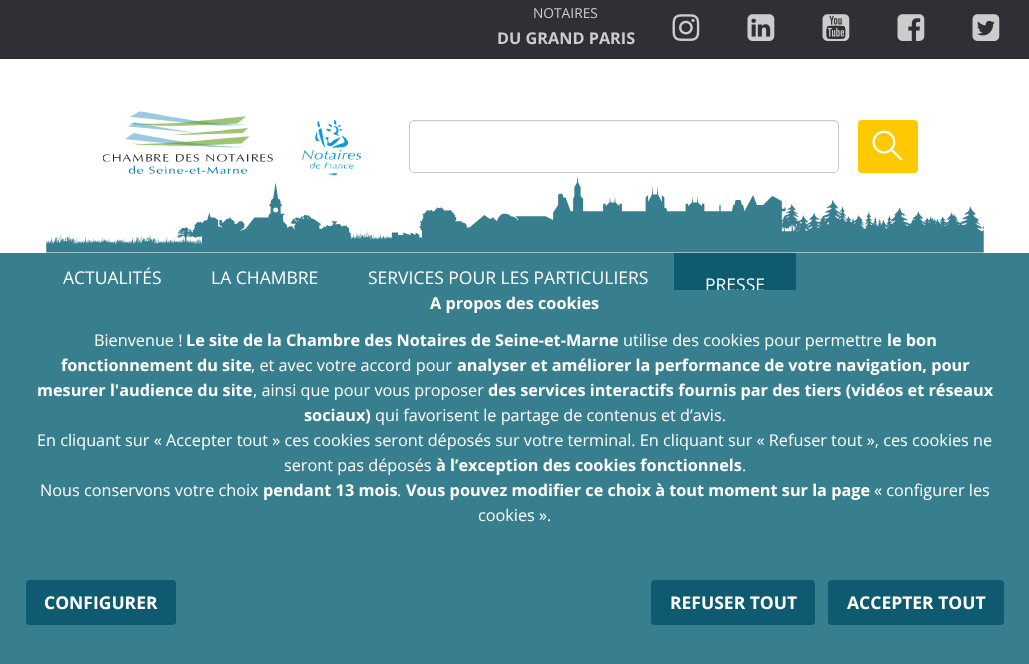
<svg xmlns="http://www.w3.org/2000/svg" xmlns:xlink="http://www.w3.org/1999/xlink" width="1029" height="664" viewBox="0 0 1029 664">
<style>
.cls-1{font:13.75px Open Sans;fill:#cccccc}
.cls-2{font:bold 16.25px Open Sans;fill:#cccccc}
.cls-3{font:17.5px Open Sans;fill:#ffffff}
.cls-4{font:bold 16.25px Open Sans;fill:#ffffff}
.cls-5{font:16.25px Open Sans;fill:#ffffff}
.cls-6{font:bold 17.5px Open Sans;fill:#ffffff}
</style>
<rect width="100%" height="100%" fill="#ffffff"/>
<rect fill="#2f3035" x="0" y="0" width="1029" height="58"/>
<rect fill="#2a2b30" x="0" y="58" width="1029" height="1"/>
<image xlink:href="image0.png" x="672" y="14" width="28" height="27"/>
<image xlink:href="image1.png" x="747" y="14" width="28" height="27"/>
<image xlink:href="image2.png" x="822" y="14" width="28" height="27"/>
<image xlink:href="image3.png" x="897" y="14" width="28" height="27"/>
<image xlink:href="image4.png" x="972" y="14" width="28" height="27"/>
<image xlink:href="image5.png" x="103" y="111" width="258" height="64"/>
<path fill="#ececec" d="M414 122H834C836 122 838 124 838 126C838 123 837 121 834 121H414C413 121 411 122 411 123L410 126C410 124 412 122 414 122Z"/>
<rect fill="none" stroke="#cccccc" x="409.5" y="120.5" width="429" height="52" rx="4.5"/>
<rect fill="#ffc901" x="858" y="120" width="60" height="53" rx="4"/>
<image xlink:href="image6.png" x="872" y="130" width="31" height="31"/>
<image xlink:href="image7.png" x="46" y="175" width="938" height="78"/>
<rect fill="#377e8f" x="0" y="253" width="1029" height="37"/>
<rect fill="#0e5a70" x="674" y="253" width="122" height="37"/>
<text class="cls-1" x="533" y="18">NOTAIRES</text>
<text class="cls-2" x="497" y="44">DU GRAND PARIS</text>
<text class="cls-3" x="63" y="284">ACTUALITÉS</text>
<text class="cls-3" x="211" y="284">LA CHAMBRE</text>
<text class="cls-3" x="368" y="284">SERVICES POUR LES PARTICULIERS</text>
<text class="cls-3" x="705" y="291">PRESSE</text>
<rect fill="#377e8f" x="0" y="290" width="1029" height="374"/>
<text class="cls-4" x="430" y="309">A propos des cookies</text>
<text class="cls-5" x="94" y="346">Bienvenue !</text>
<text class="cls-4" x="186" y="346">Le site de la Chambre des Notaires de Seine-et-Marne</text>
<text class="cls-5" x="623" y="346">utilise des cookies pour permettre</text>
<text class="cls-4" x="887" y="346">le bon</text>
<text class="cls-4" x="61" y="371">fonctionnement du site</text>
<text class="cls-5" x="251" y="371">, et avec votre accord pour</text>
<text class="cls-4" x="457" y="371">analyser et améliorer la performance de votre navigation, pour</text>
<text class="cls-4" x="37" y="396">mesurer l'audience du site</text>
<text class="cls-5" x="253" y="396">, ainsi que pour vous proposer</text>
<text class="cls-4" x="488" y="396">des services interactifs fournis par des tiers (vidéos et réseaux</text>
<text class="cls-4" x="304" y="421">sociaux)</text>
<text class="cls-5" x="375" y="421">qui favorisent le partage de contenus et d’avis.</text>
<text class="cls-5" x="37" y="446">En cliquant sur « Accepter tout » ces cookies seront déposés sur votre terminal. En cliquant sur « Refuser tout », ces cookies ne</text>
<text class="cls-5" x="284" y="471">seront pas déposés</text>
<text class="cls-4" x="436" y="471">à l’exception des cookies fonctionnels</text>
<text class="cls-5" x="742" y="471">.</text>
<text class="cls-5" x="40" y="496">Nous conservons votre choix</text>
<text class="cls-4" x="263" y="496">pendant 13 mois</text>
<text class="cls-5" x="397" y="496">.</text>
<text class="cls-4" x="406" y="496">Vous pouvez modifier ce choix à tout moment sur la page</text>
<text class="cls-5" x="874" y="496">« configurer les</text>
<text class="cls-5" x="478" y="521">cookies ».</text>
<rect fill="#0e5a70" x="26" y="580" width="150" height="45" rx="4"/>
<text class="cls-6" x="44" y="609">CONFIGURER</text>
<rect fill="#0e5a70" x="651" y="580" width="164" height="45" rx="4"/>
<text class="cls-6" x="670" y="609">REFUSER TOUT</text>
<rect fill="#0e5a70" x="828" y="580" width="176" height="45" rx="4"/>
<text class="cls-6" x="847" y="609">ACCEPTER TOUT</text>
</svg>
